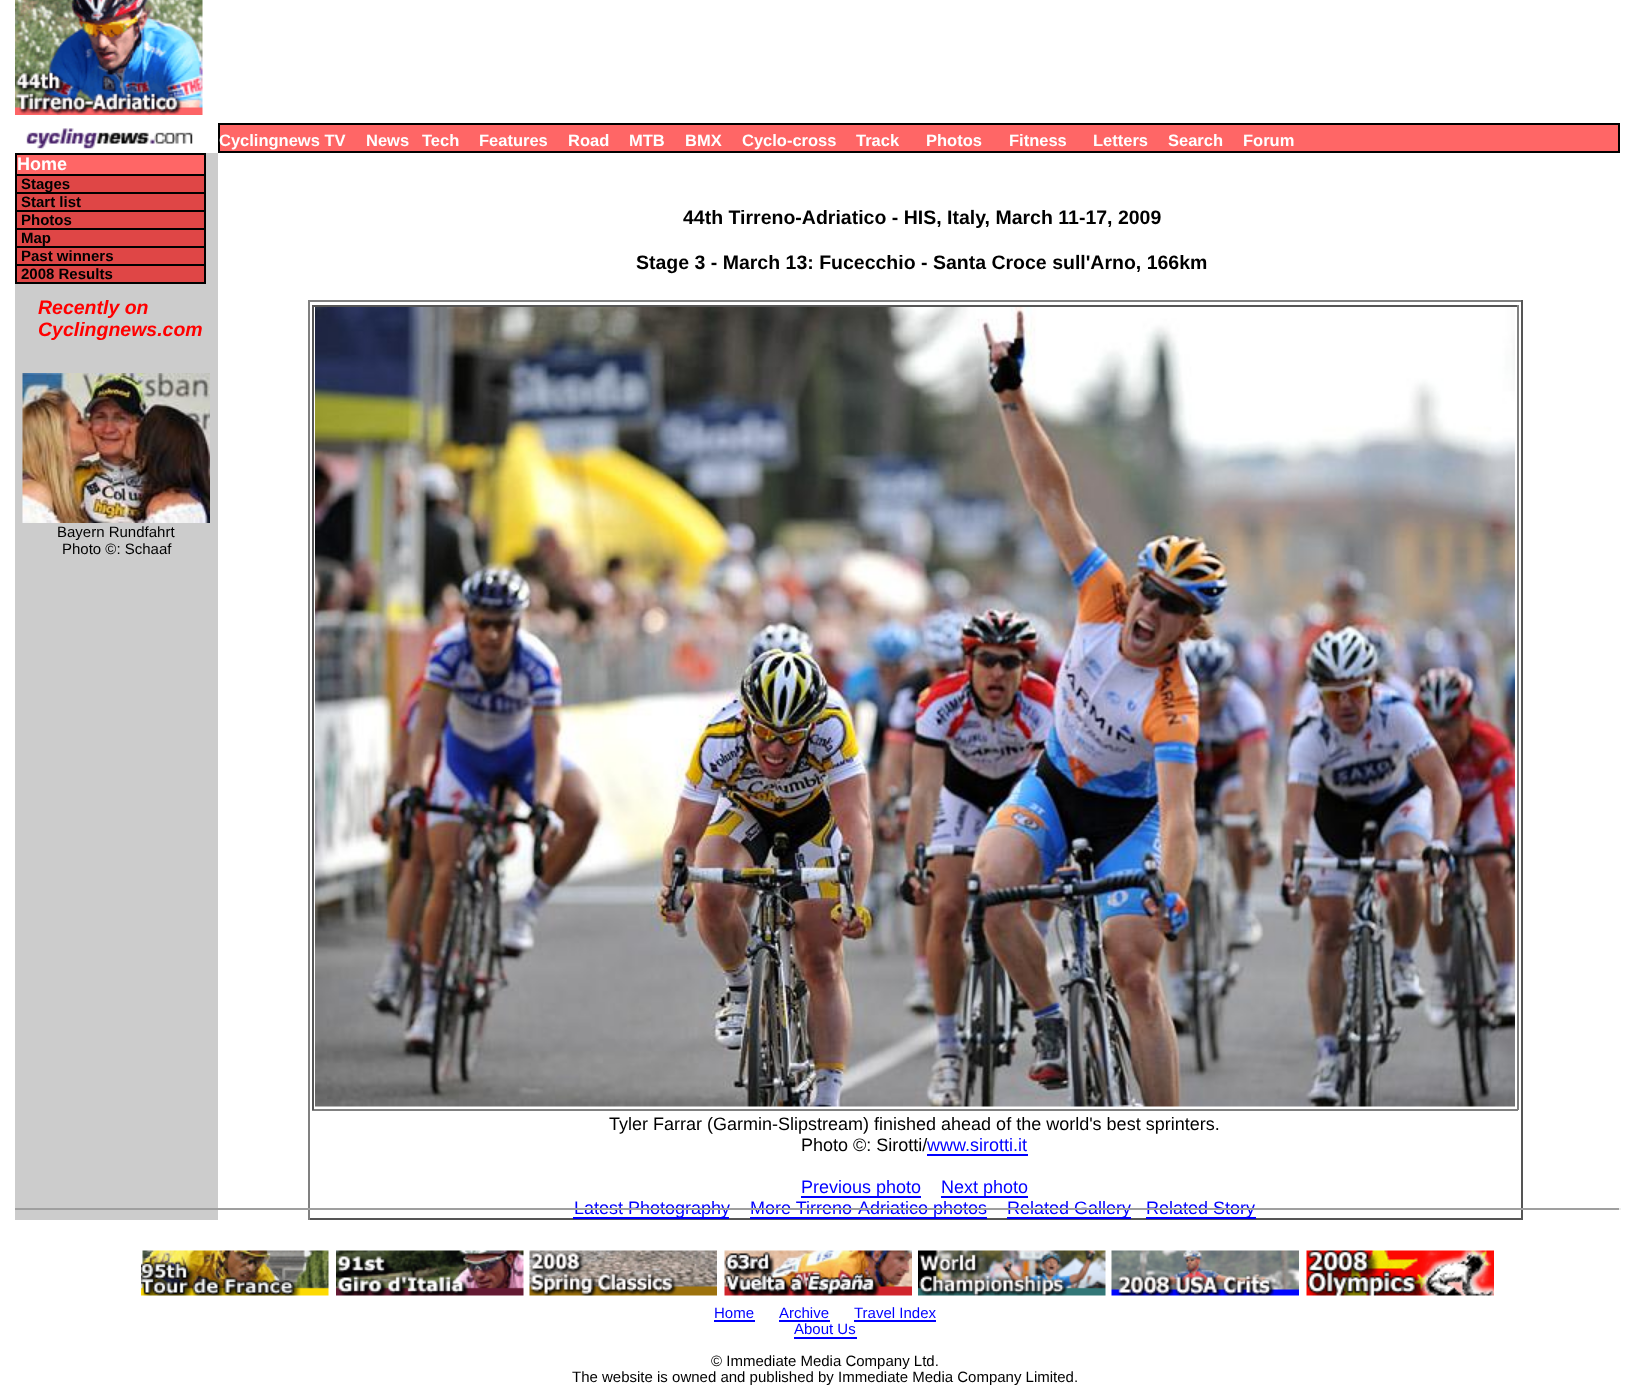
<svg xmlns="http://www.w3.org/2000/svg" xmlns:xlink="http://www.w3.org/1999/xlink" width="1627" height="1400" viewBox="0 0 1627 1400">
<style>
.cls-1{font:bold 16.5px Liberation Sans;fill:#ffffff}
.cls-2{font:bold 18px Liberation Sans;fill:#ffffff}
.cls-3{font:bold 15px Liberation Sans;fill:#000000}
.cls-4{font:italic bold 19.5px Liberation Sans;fill:#ff0000}
.cls-5{font:15px Liberation Sans;fill:#000000}
.cls-6{font:bold 19.5px Liberation Sans;fill:#000000}
.cls-7{font:18px Liberation Sans;fill:#000000}
.cls-8{font:18px Liberation Sans;fill:#0000ff}
.cls-9{font:15px Liberation Sans;fill:#0000ff}
</style>
<rect width="100%" height="100%" fill="#ffffff"/>
<image xlink:href="image0.png" x="15" y="0" width="188" height="115"/>
<image xlink:href="image1.png" x="26" y="128" width="167" height="21"/>
<rect fill="#ff6666" stroke="#000000" stroke-width="2" x="219" y="124" width="1400" height="28"/>
<rect fill="#cccccc" x="15" y="153" width="203" height="1067"/>
<rect fill="#000000" x="15" y="153" width="191" height="2"/>
<rect fill="#ff6666" x="17" y="155" width="187" height="19"/>
<rect fill="#000000" x="204" y="155" width="2" height="129"/>
<rect fill="#000000" x="15" y="174" width="191" height="2"/>
<rect fill="#000000" x="15" y="155" width="2" height="21"/>
<rect fill="#df4646" x="17" y="176" width="187" height="16"/>
<rect fill="#000000" x="15" y="192" width="191" height="2"/>
<rect fill="#000000" x="15" y="176" width="2" height="18"/>
<rect fill="#df4646" x="17" y="194" width="187" height="16"/>
<rect fill="#000000" x="15" y="210" width="191" height="2"/>
<rect fill="#000000" x="15" y="194" width="2" height="18"/>
<rect fill="#df4646" x="17" y="212" width="187" height="16"/>
<rect fill="#000000" x="15" y="228" width="191" height="2"/>
<rect fill="#000000" x="15" y="212" width="2" height="18"/>
<rect fill="#df4646" x="17" y="230" width="187" height="16"/>
<rect fill="#000000" x="15" y="246" width="191" height="2"/>
<rect fill="#000000" x="15" y="230" width="2" height="18"/>
<rect fill="#df4646" x="17" y="248" width="187" height="16"/>
<rect fill="#000000" x="15" y="264" width="191" height="2"/>
<rect fill="#000000" x="15" y="248" width="2" height="18"/>
<rect fill="#df4646" x="17" y="266" width="187" height="16"/>
<rect fill="#000000" x="15" y="282" width="191" height="2"/>
<rect fill="#000000" x="15" y="266" width="2" height="18"/>
<image xlink:href="image2.png" x="22" y="373" width="188" height="150"/>
<rect fill="#808080" x="308" y="300" width="1215" height="2"/>
<rect fill="#555555" x="1521" y="300" width="2" height="920"/>
<rect fill="#555555" x="308" y="1218" width="1215" height="2"/>
<rect fill="#808080" x="308" y="300" width="2" height="920"/>
<rect fill="#555555" x="312" y="305" width="1206" height="2"/>
<rect fill="#808080" x="1517" y="305" width="2" height="805"/>
<rect fill="#808080" x="312" y="1109" width="1206" height="2"/>
<rect fill="#555555" x="312" y="305" width="2" height="805"/>
<image xlink:href="image3.png" x="315" y="307" width="1200" height="800"/>
<rect fill="#0000ff" x="927" y="1154" width="101" height="2"/>
<rect fill="#0000ff" x="801" y="1196" width="120" height="2"/>
<rect fill="#0000ff" x="941" y="1196" width="87" height="2"/>
<rect fill="#0000ff" x="573" y="1217" width="156" height="2"/>
<rect fill="#0000ff" x="750" y="1217" width="237" height="2"/>
<rect fill="#0000ff" x="1007" y="1217" width="124" height="2"/>
<rect fill="#0000ff" x="1146" y="1217" width="110" height="2"/>
<image xlink:href="image4.png" x="141" y="1250" width="188" height="46"/>
<image xlink:href="image5.png" x="336" y="1250" width="188" height="46"/>
<image xlink:href="image6.png" x="529" y="1250" width="188" height="46"/>
<image xlink:href="image7.png" x="724" y="1250" width="188" height="46"/>
<image xlink:href="image8.png" x="918" y="1250" width="188" height="46"/>
<image xlink:href="image9.png" x="1111" y="1250" width="188" height="46"/>
<image xlink:href="image10.png" x="1306" y="1250" width="188" height="46"/>
<rect fill="#0000ff" x="714" y="1320" width="41" height="2"/>
<rect fill="#0000ff" x="779" y="1320" width="51" height="2"/>
<rect fill="#0000ff" x="854" y="1320" width="82" height="2"/>
<rect fill="#0000ff" x="794" y="1337" width="63" height="2"/>
<text class="cls-1" x="219" y="146">Cyclingnews TV</text>
<text class="cls-1" x="366" y="146">News</text>
<text class="cls-1" x="422" y="146">Tech</text>
<text class="cls-1" x="479" y="146">Features</text>
<text class="cls-1" x="568" y="146">Road</text>
<text class="cls-1" x="629" y="146">MTB</text>
<text class="cls-1" x="685" y="146">BMX</text>
<text class="cls-1" x="742" y="146">Cyclo-cross</text>
<text class="cls-1" x="856" y="146">Track</text>
<text class="cls-1" x="926" y="146">Photos</text>
<text class="cls-1" x="1009" y="146">Fitness</text>
<text class="cls-1" x="1093" y="146">Letters</text>
<text class="cls-1" x="1168" y="146">Search</text>
<text class="cls-1" x="1243" y="146">Forum</text>
<text class="cls-2" x="17" y="170">Home</text>
<text class="cls-3"><tspan x="21" y="189">Stages</tspan><tspan x="21" y="207">Start list</tspan><tspan x="21" y="225">Photos</tspan><tspan x="21" y="243">Map</tspan><tspan x="21" y="261">Past winners</tspan><tspan x="21" y="279">2008 Results</tspan></text>
<text class="cls-4"><tspan x="38" y="314">Recently on</tspan><tspan x="38" y="336">Cyclingnews.com</tspan></text>
<text class="cls-5" x="57" y="537">Bayern Rundfahrt</text>
<text class="cls-5" x="62" y="554">Photo ©: Schaaf</text>
<text class="cls-6" x="683" y="224">44th Tirreno-Adriatico - HIS, Italy, March 11-17, 2009</text>
<text class="cls-6" x="636" y="269">Stage 3 - March 13: Fucecchio - Santa Croce sull'Arno, 166km</text>
<text class="cls-7" x="609" y="1130">Tyler Farrar (Garmin-Slipstream) finished ahead of the world's best sprinters.</text>
<text class="cls-7" x="801" y="1151">Photo ©: Sirotti/</text>
<text class="cls-8" x="927" y="1151">www.sirotti.it</text>
<text class="cls-8" x="801" y="1193">Previous photo</text>
<text class="cls-8" x="941" y="1193">Next photo</text>
<text class="cls-8" x="574" y="1214">Latest Photography</text>
<text class="cls-8" x="750" y="1214">More Tirreno-Adriatico photos</text>
<text class="cls-8" x="1007" y="1214">Related Gallery</text>
<text class="cls-8" x="1146" y="1214">Related Story</text>
<rect fill="#9f9f9f" x="15" y="1208" width="1605" height="2"/>
<rect fill="#eeeeee" x="1619" y="1208" width="2" height="2"/>
<text class="cls-9" x="714" y="1318">Home</text>
<text class="cls-9" x="779" y="1318">Archive</text>
<text class="cls-9" x="854" y="1318">Travel Index</text>
<text class="cls-9" x="794" y="1334">About Us</text>
<text class="cls-5" x="711" y="1366">© Immediate Media Company Ltd.</text>
<text class="cls-5" x="572" y="1382">The website is owned and published by Immediate Media Company Limited.</text>
</svg>
